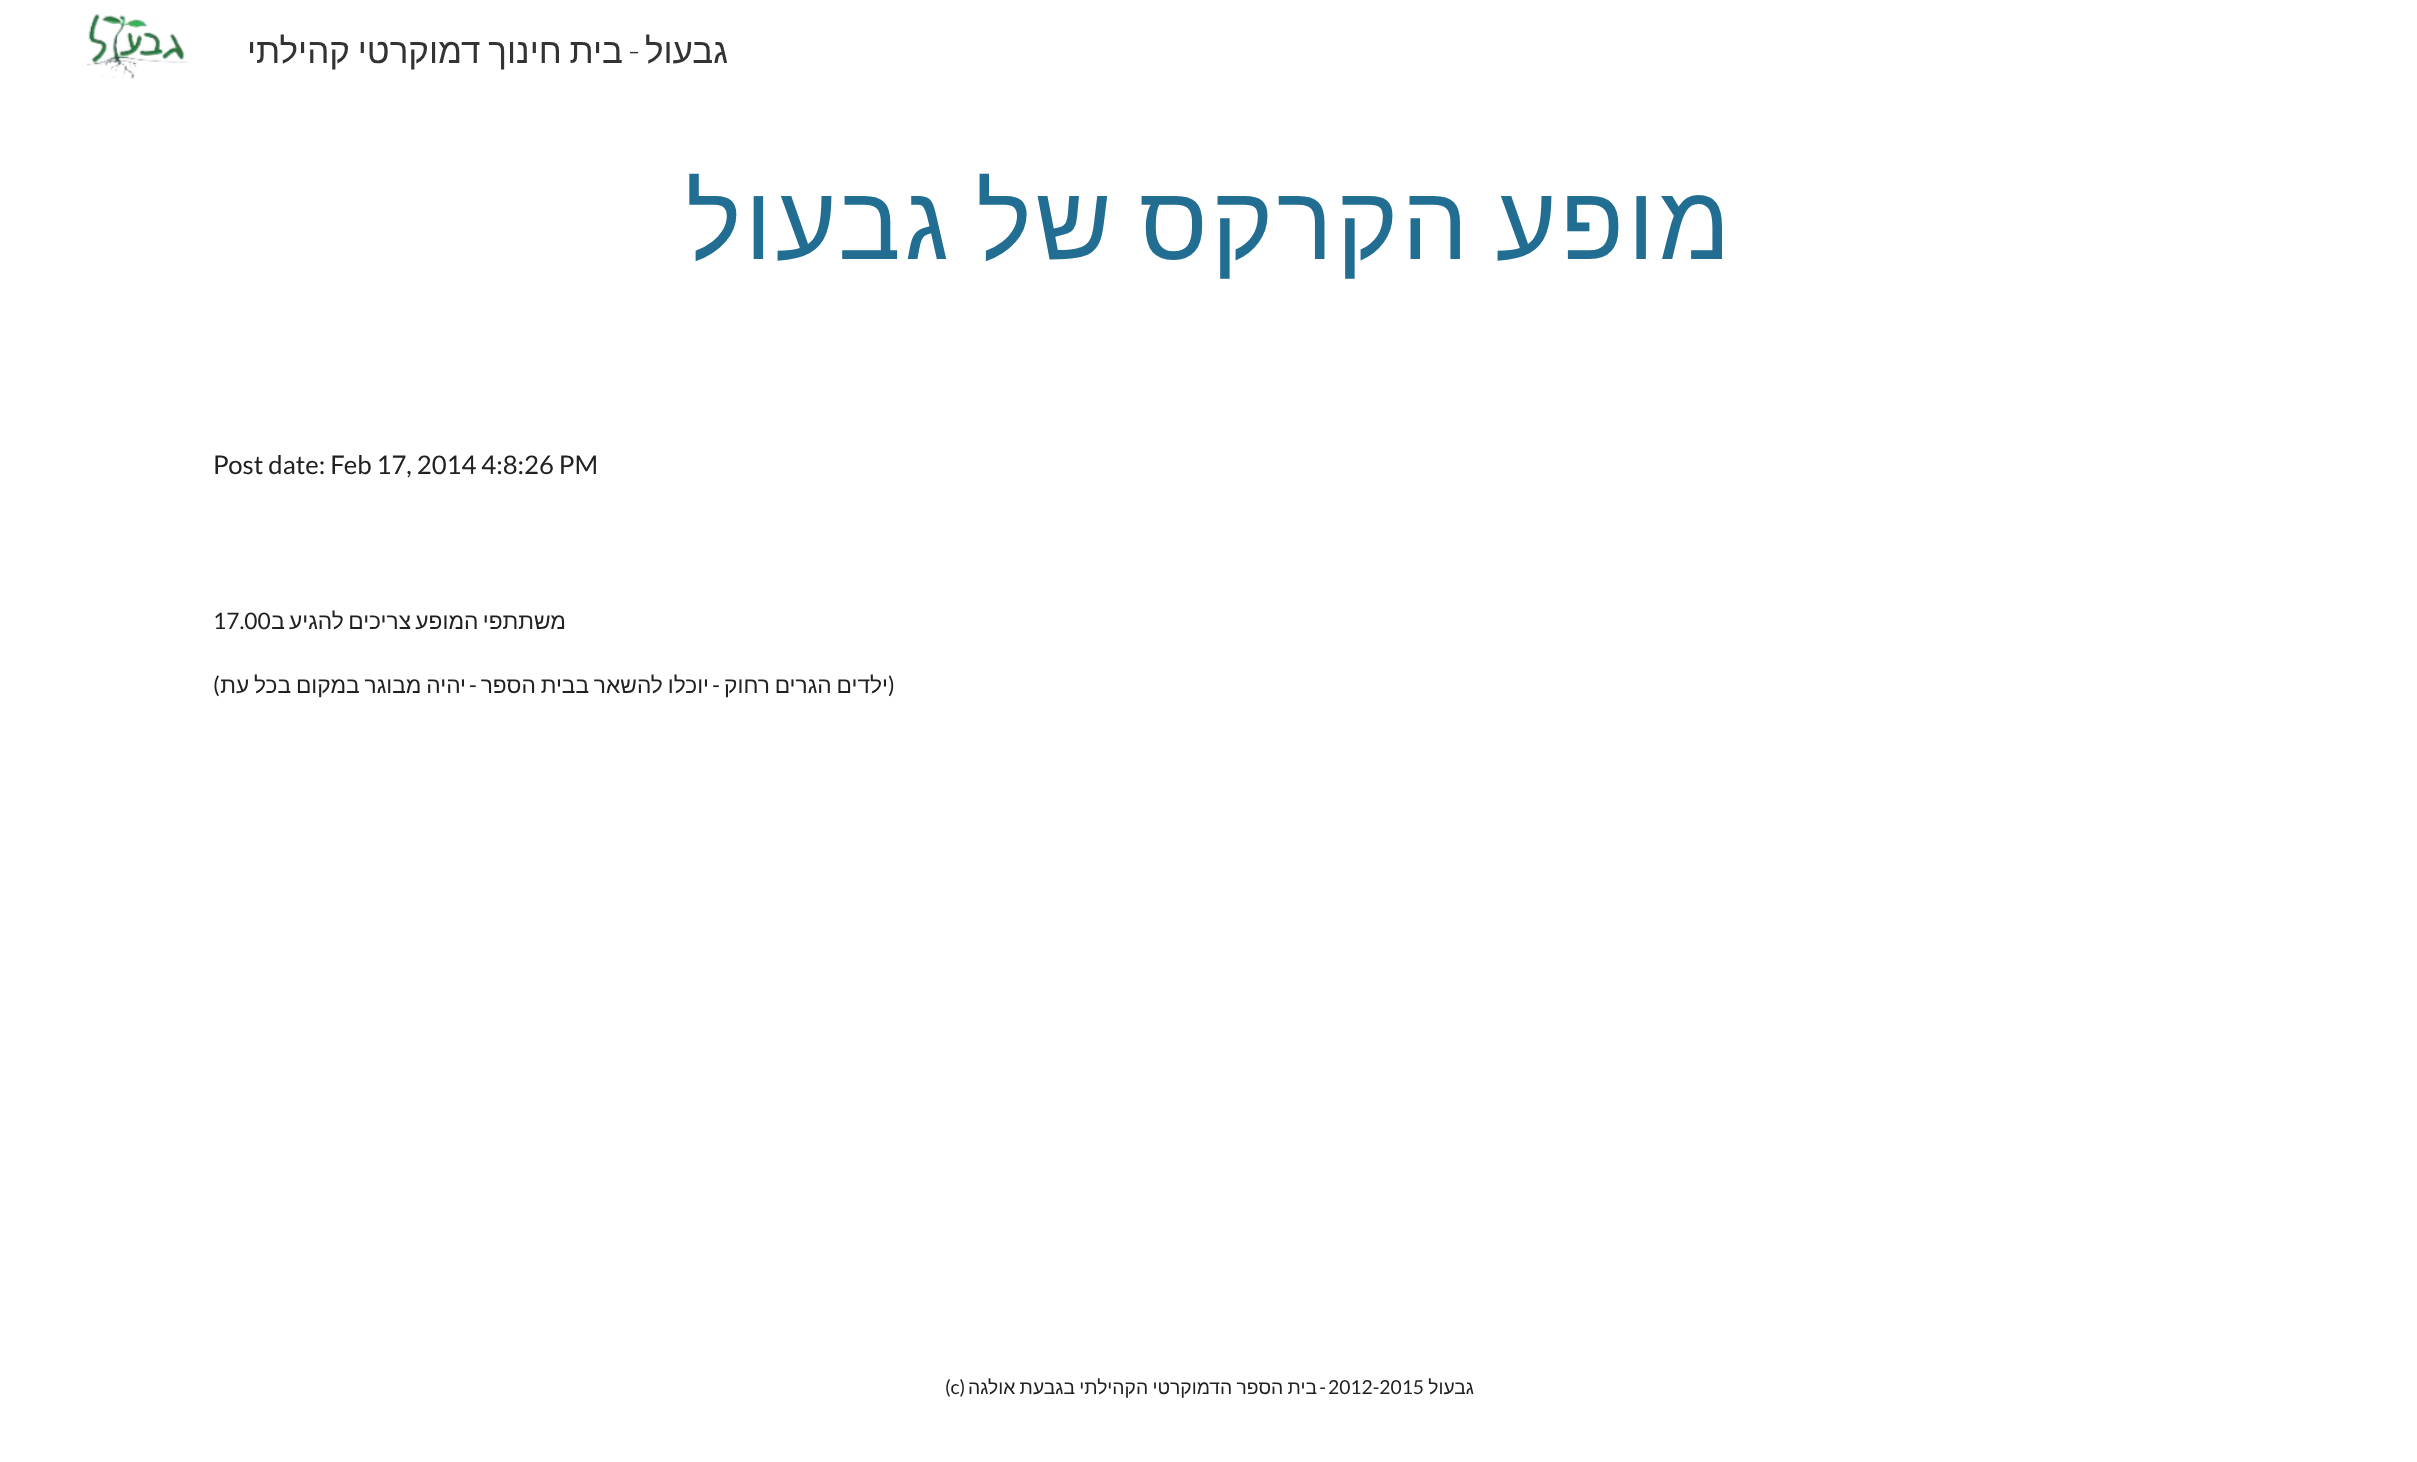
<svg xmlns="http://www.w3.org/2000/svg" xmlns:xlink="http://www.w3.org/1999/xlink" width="2417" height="1462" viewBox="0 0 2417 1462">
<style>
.cls-1{font:35px Liberation Sans;direction:rtl;fill:#333333}
.cls-2{font:300 35px Lato;direction:rtl;fill:#333333}
.cls-3{font:105px Liberation Sans;letter-spacing:3.5px;direction:rtl;fill:#226e93}
.cls-4{font:25.7px Lato;fill:#212121}
.cls-5{font:22.75px Liberation Sans;direction:rtl;fill:#212121}
.cls-6{font:22.75px Lato;fill:#212121}
.cls-7{font:22.75px Lato;direction:rtl;fill:#212121}
.cls-8{font:19.25px Liberation Sans;direction:rtl;fill:#212121}
.cls-9{font:19.25px Lato;fill:#212121}
.cls-10{font:19.25px Lato;direction:rtl;fill:#212121}
</style>
<rect width="100%" height="100%" fill="#ffffff"/>
<image xlink:href="image0.png" x="81" y="13" width="108" height="66"/>
<text class="cls-1" x="728" y="63">גבעול</text>
<text class="cls-2" x="640" y="63">-</text>
<text class="cls-1" x="623" y="63" word-spacing="-2">בית חינוך דמוקרטי קהילתי</text>
<text class="cls-3" x="1734" y="259" word-spacing="-9">מופע הקרקס של גבעול</text>
<text class="cls-4" x="213" y="474">Post date: Feb 17, 2014 4:8:26 PM</text>
<text class="cls-5" x="566" y="629" word-spacing="-2">משתתפי המופע צריכים להגיע ב</text>
<text class="cls-6" x="213" y="629">17.00</text>
<text class="cls-6" x="888" y="693">)</text>
<text class="cls-5" x="888" y="693" word-spacing="-1.5">ילדים הגרים רחוק</text>
<text class="cls-7" x="720" y="693">-</text>
<text class="cls-5" x="709" y="693" word-spacing="-1.5">יוכלו להשאר בבית הספר</text>
<text class="cls-7" x="477" y="693">-</text>
<text class="cls-5" x="466" y="693" word-spacing="-1.5">יהיה מבוגר במקום בכל עת</text>
<text class="cls-6" x="213" y="693">(</text>
<text class="cls-8" x="1474" y="1394">גבעול</text>
<text class="cls-9" x="1328" y="1394">2012-2015</text>
<text class="cls-10" x="1326" y="1394">-</text>
<text class="cls-8" x="1317" y="1394" word-spacing="-1">בית הספר הדמוקרטי הקהילתי בגבעת אולגה</text>
<text class="cls-9" x="945" y="1394">(c)</text>
</svg>
